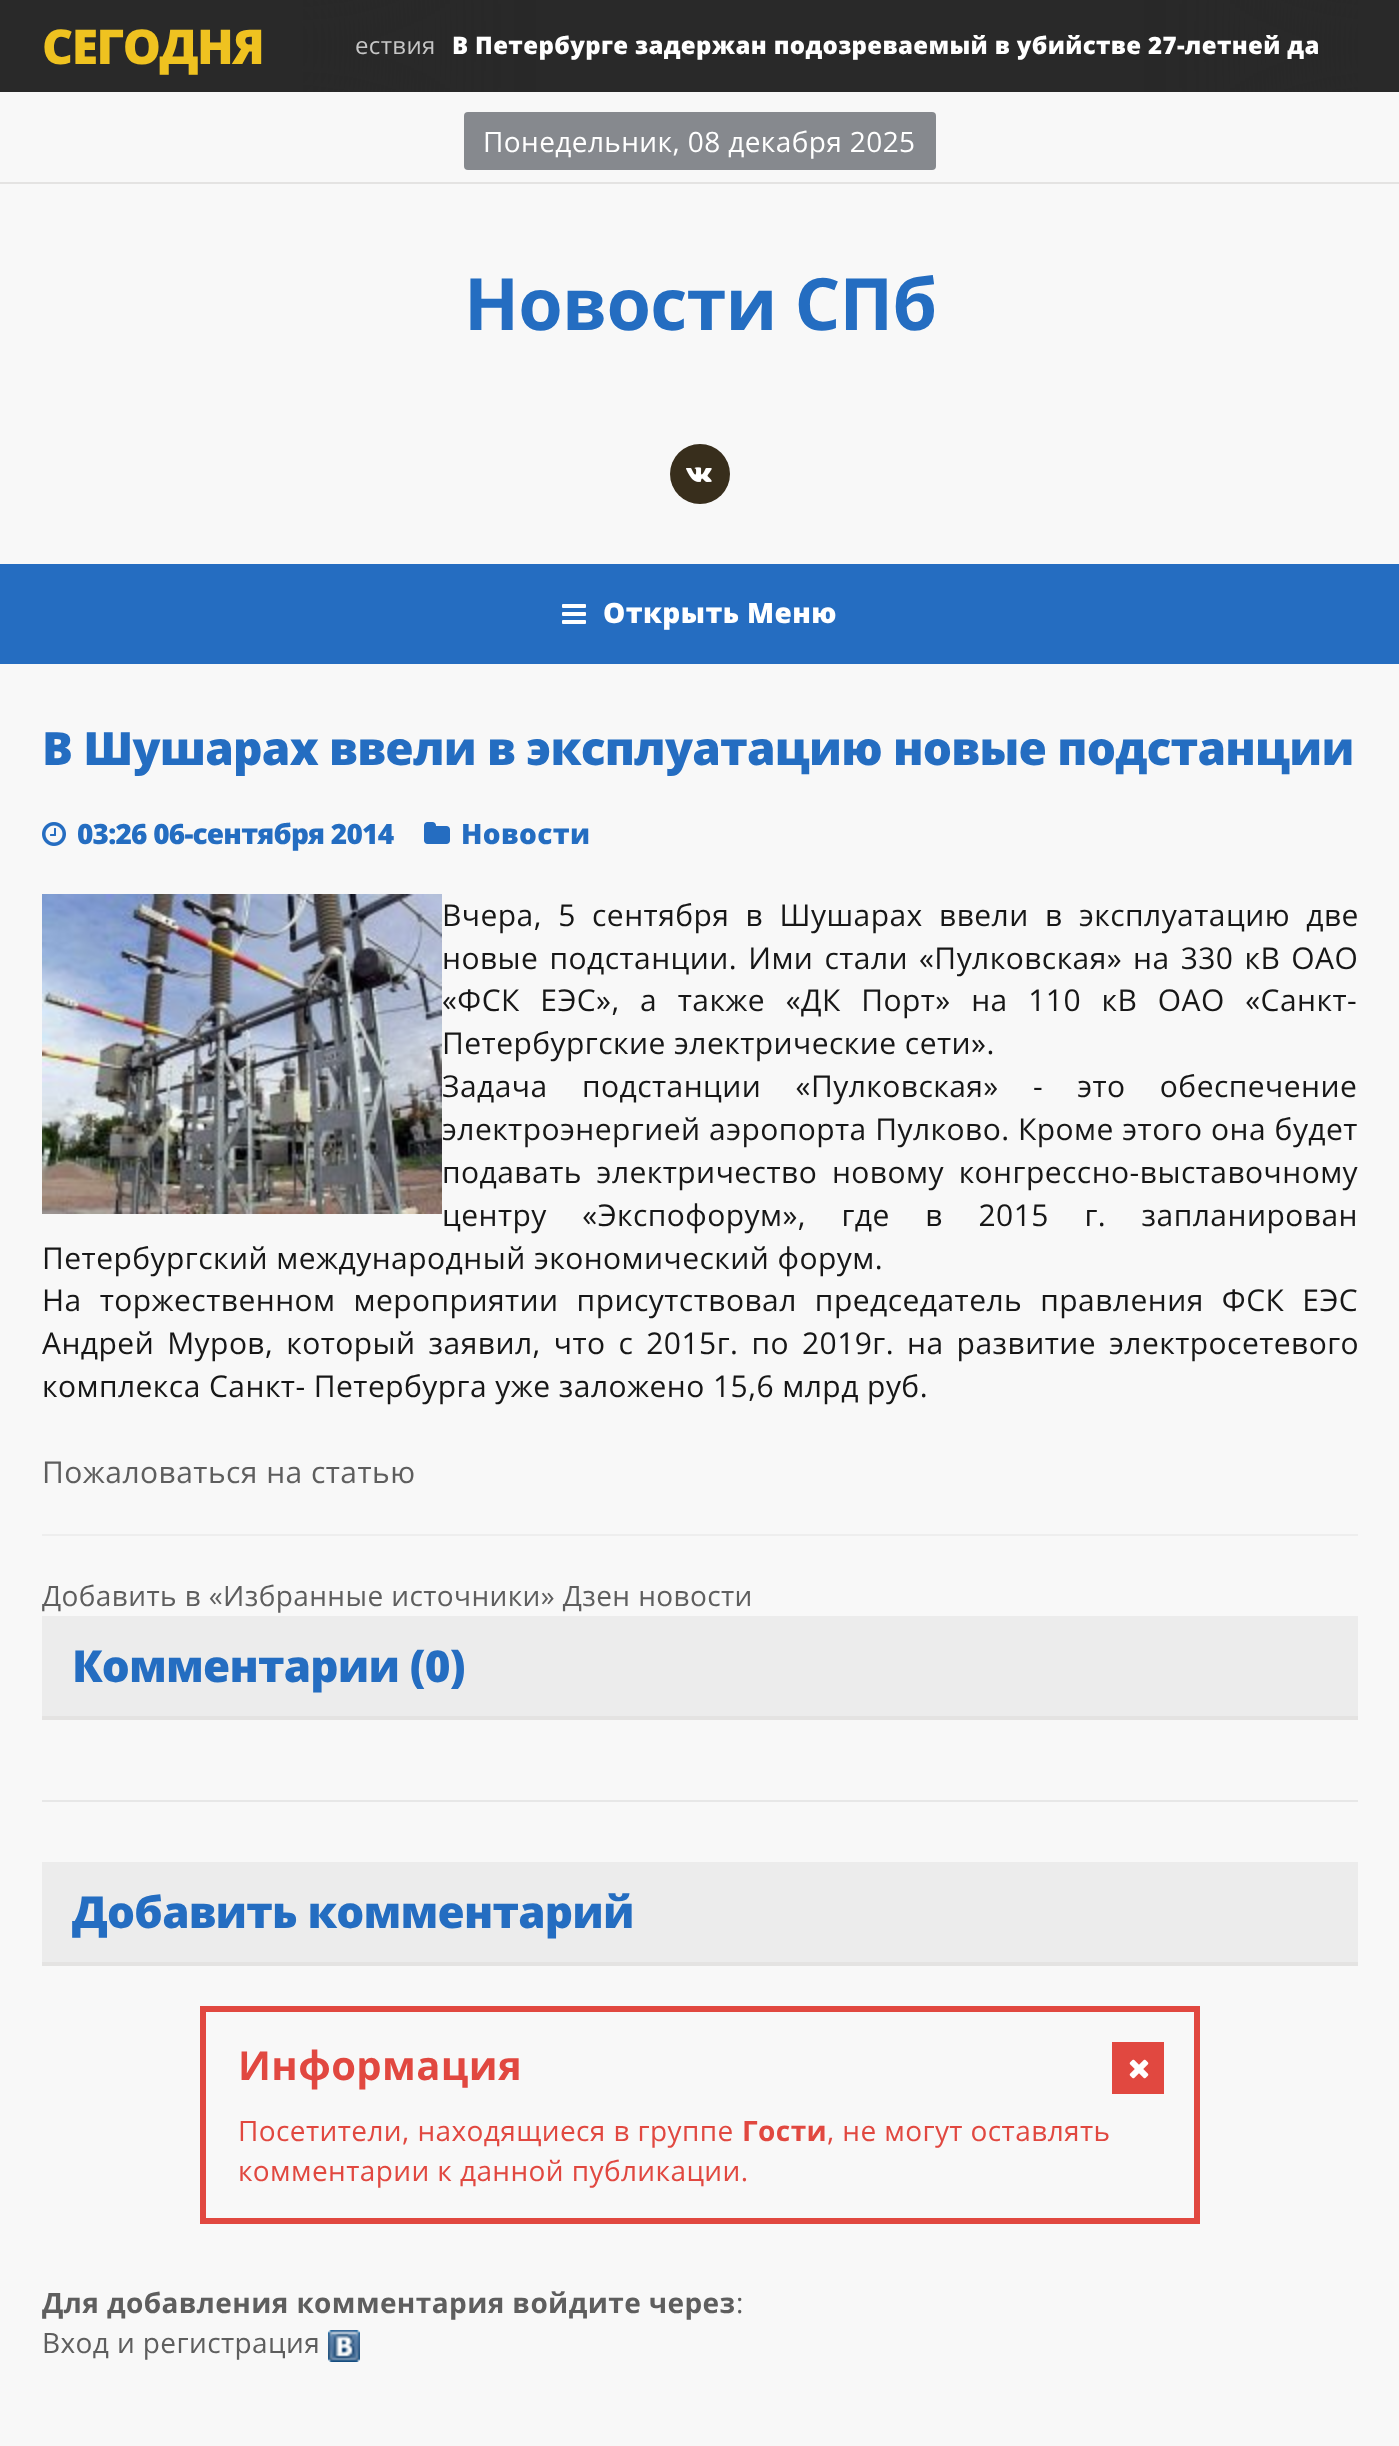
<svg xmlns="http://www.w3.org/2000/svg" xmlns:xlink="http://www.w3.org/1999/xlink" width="1399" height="2446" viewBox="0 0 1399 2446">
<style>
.cls-1{font:800 48px Open Sans;letter-spacing:-1.5px;fill:#efc220}
.cls-2{font:24px Open Sans;letter-spacing:0.35px;fill:#c6c6c6}
.cls-3{font:800 24px Open Sans;letter-spacing:0.35px;fill:#ffffff}
.cls-4{font:28px Open Sans;letter-spacing:0.4px;fill:#ffffff}
.cls-5{font:bold 72px Open Sans;letter-spacing:-0.8px;fill:#246dc1}
.cls-6{font:800 28px Open Sans;letter-spacing:0.4px;fill:#ffffff}
.cls-7{font:800 46px Open Sans;letter-spacing:-0.8px;fill:#246dc1}
.cls-8{font:800 28px Open Sans;letter-spacing:-0.8px;fill:#246dc1}
.cls-9{font:800 28px Open Sans;letter-spacing:0.4px;fill:#246dc1}
.cls-10{font:30px Open Sans;letter-spacing:0.45px;fill:#171717}
.cls-11{font:30px Open Sans;letter-spacing:0.45px;fill:#5e5e5e}
.cls-12{font:28px Open Sans;letter-spacing:0.4px;fill:#5e5e5e}
.cls-13{font:800 44px Open Sans;letter-spacing:-0.8px;fill:#246dc1}
.cls-14{font:bold 40px Open Sans;letter-spacing:0.4px;fill:#e14840}
.cls-15{font:28px Open Sans;letter-spacing:0.4px;fill:#e14840}
.cls-16{font:bold 28px Open Sans;letter-spacing:0.4px;fill:#e14840}
.cls-17{font:bold 28px Open Sans;letter-spacing:0.4px;fill:#5e5e5e}
</style>
<defs>
<clipPath id="clip1"><rect x="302" y="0" width="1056" height="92"/></clipPath>
</defs>
<rect width="100%" height="100%" fill="#f8f8f8"/>
<rect fill="#292929" x="0" y="0" width="1399" height="92"/>
<g clip-path="url(#clip1)">
<rect fill="#292929" filter="blur(60px)" x="32" y="-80" width="360" height="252"/>
<rect fill="#292929" filter="blur(60px)" x="1288" y="-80" width="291" height="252"/>
</g>
<rect fill="#e4e3e2" x="0" y="182" width="1399" height="2"/>
<rect fill="#86898e" x="464" y="112" width="472" height="58" rx="4"/>
<circle fill="#382e1c" cx="700" cy="474" r="30"/>
<image xlink:href="image0.png" x="686" y="467" width="26" height="15"/>
<rect fill="#256dc1" x="0" y="564" width="1399" height="100"/>
<image xlink:href="image1.png" x="562" y="604" width="24" height="20"/>
<image xlink:href="image2.png" x="42" y="822" width="24" height="24"/>
<image xlink:href="image3.png" x="424" y="822" width="26" height="22"/>
<image xlink:href="image4.png" x="42" y="894" width="400" height="320"/>
<rect fill="#eeeeee" x="42" y="1534" width="1316" height="2"/>
<rect fill="#ececec" x="42" y="1616" width="1316" height="100"/>
<rect fill="#e4e3e2" x="42" y="1716" width="1316" height="4"/>
<rect fill="#e7e7e7" x="42" y="1800" width="1316" height="2"/>
<rect fill="#ececec" x="42" y="1862" width="1316" height="100"/>
<rect fill="#e4e3e2" x="42" y="1962" width="1316" height="4"/>
<rect fill="none" stroke="#e14840" stroke-width="6" x="203" y="2009" width="994" height="212"/>
<rect fill="#e14840" x="1112" y="2042" width="52" height="52"/>
<image xlink:href="image5.png" x="1129" y="2059" width="20" height="20"/>
<image xlink:href="image6.png" x="328" y="2330" width="32" height="32"/>
<text class="cls-1" x="42" y="64">СЕГОДНЯ</text>
<text class="cls-2" x="355" y="54">ествия</text>
<text class="cls-3" x="452" y="54">В Петербурге задержан подозреваемый в убийстве 27-летней да</text>
<text class="cls-4" x="483" y="152">Понедельник, 08 декабря 2025</text>
<text class="cls-5" x="464" y="330">Новости CПб</text>
<text class="cls-6" x="603" y="623">Открыть Меню</text>
<text class="cls-7" x="42" y="765">В Шушарах ввели в эксплуатацию новые подстанции</text>
<text class="cls-8" x="77" y="844">03:26 06-сентября 2014</text>
<text class="cls-9" x="461" y="844">Новости</text>
<text class="cls-10"><tspan x="442" y="926" word-spacing="8">Вчера, 5 сентября в Шушарах ввели в эксплуатацию две</tspan><tspan x="442" y="969" word-spacing="2.75">новые подстанции. Ими стали «Пулковская» на 330 кВ ОАО</tspan><tspan x="442" y="1011" word-spacing="12.25">«ФСК ЕЭС», а также «ДК Порт» на 110 кВ ОАО «Санкт-</tspan><tspan x="442" y="1054">Петербургские электрические сети».</tspan><tspan x="442" y="1097" word-spacing="26">Задача подстанции «Пулковская» - это обеспечение</tspan><tspan x="442" y="1140" word-spacing="0.25">электроэнергией аэропорта Пулково. Кроме этого она будет</tspan><tspan x="442" y="1183" word-spacing="6.5">подавать электричество новому конгрессно-выставочному</tspan><tspan x="442" y="1226" word-spacing="27.25">центру «Экспофорум», где в 2015 г. запланирован</tspan></text>
<text class="cls-10"><tspan x="42" y="1269">Петербургский международный экономический форум.</tspan><tspan x="42" y="1311" word-spacing="9.75">На торжественном мероприятии присутствовал председатель правления ФСК ЕЭС</tspan><tspan x="42" y="1354" word-spacing="4.75">Андрей Муров, который заявил, что с 2015г. по 2019г. на развитие электросетевого</tspan><tspan x="42" y="1397">комплекса Санкт- Петербурга уже заложено 15,6 млрд руб.</tspan></text>
<text class="cls-11" x="42" y="1483">Пожаловаться на статью</text>
<text class="cls-12" x="42" y="1606">Добавить в «Избранные источники» Дзен новости</text>
<text class="cls-13" x="72" y="1682">Комментарии (0)</text>
<text class="cls-13" x="72" y="1928">Добавить комментарий</text>
<text class="cls-14" x="238" y="2080">Информация</text>
<text class="cls-15" x="238" y="2141">Посетители, находящиеся в группе</text>
<text class="cls-16" x="742" y="2141">Гости</text>
<text class="cls-15" x="827" y="2141">, не могут оставлять</text>
<text class="cls-15" x="238" y="2181">комментарии к данной публикации.</text>
<text class="cls-17" x="42" y="2313">Для добавления комментария войдите через</text>
<text class="cls-12" x="736" y="2313">:</text>
<text class="cls-12" x="42" y="2353">Вход и регистрация</text>
</svg>
